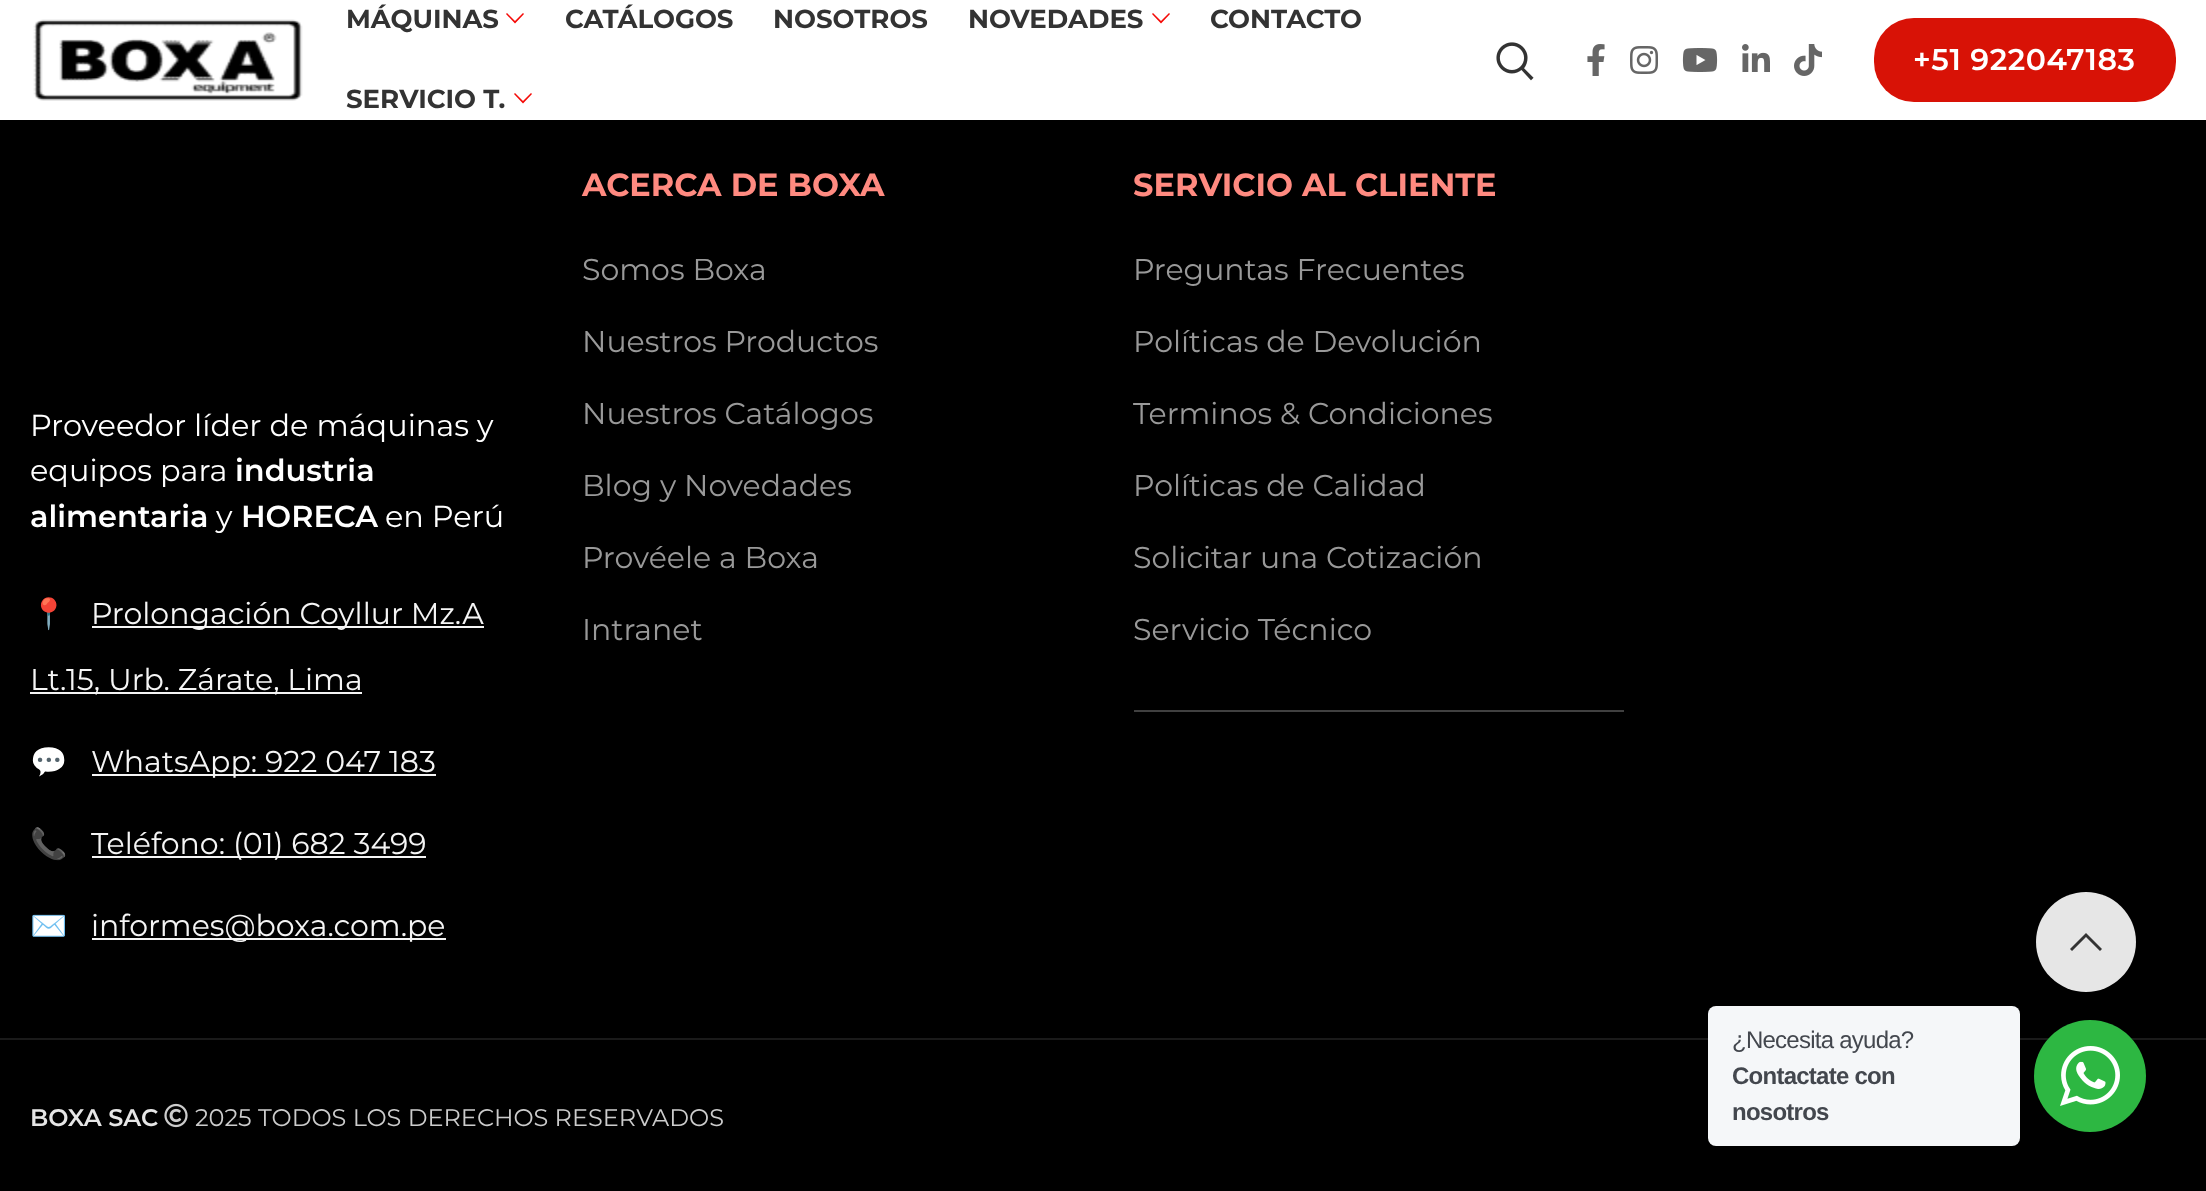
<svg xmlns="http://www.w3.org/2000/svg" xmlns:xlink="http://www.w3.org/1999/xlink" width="2206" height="1191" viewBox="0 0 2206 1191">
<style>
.cls-1{font:bold 26px Montserrat;fill:#333333}
.cls-2{font:600 30px Montserrat;letter-spacing:0.6px;fill:#ffffff}
.cls-3{font:30.4px Montserrat;fill:#ffffff}
.cls-4{font:600 30.4px Montserrat;fill:#ffffff}
.cls-5{font:30px Noto Color Emoji;fill:#ff8a80}
.cls-6{font:30px Montserrat;fill:#f5f5f5}
.cls-7{font:bold 32px Montserrat;fill:#ff8a80}
.cls-8{font:30px Montserrat;fill:#999999}
.cls-9{font:600 24px Montserrat;fill:#e6e6e6}
.cls-10{font:24px Montserrat;fill:#cccccc}
.cls-11{font:24px Liberation Sans;letter-spacing:-0.75px;fill:#43474e}
.cls-12{font:bold 24px Liberation Sans;letter-spacing:-0.75px;fill:#43474e}
</style>
<rect width="100%" height="100%" fill="#000000"/>
<rect fill="#ffffff" x="0" y="0" width="2206" height="120"/>
<image xlink:href="image0.png" x="33" y="19" width="270" height="82"/>
<path fill="#f50a07" d="M523 13L524 14L515 23.5L506 14L507 13L515 21Z"/>
<path fill="#f50a07" d="M1169 13L1170 14L1161 23.5L1152 14L1153 13L1161 21Z"/>
<path fill="#f50a07" d="M531 93L532 94L523 103.5L514 94L515 93L523 101Z"/>
<image xlink:href="image1.png" x="1496" y="42" width="38" height="39"/>
<image xlink:href="image2.png" x="1587" y="44" width="18" height="32"/>
<image xlink:href="image3.png" x="1630" y="46" width="28" height="28"/>
<image xlink:href="image4.png" x="1682" y="48" width="36" height="24"/>
<image xlink:href="image5.png" x="1742" y="44" width="28" height="28"/>
<image xlink:href="image6.png" x="1794" y="44" width="28" height="32"/>
<rect fill="#d81206" x="1874" y="18" width="302" height="84" rx="40"/>
<rect fill="#f5f5f5" x="92" y="626" width="392" height="2"/>
<rect fill="#f5f5f5" x="30" y="692" width="332" height="2"/>
<rect fill="#f5f5f5" x="92" y="774" width="344" height="2"/>
<rect fill="#f5f5f5" x="92" y="856" width="334" height="2"/>
<rect fill="#f5f5f5" x="92" y="938" width="354" height="2"/>
<rect fill="#404040" x="1134" y="710" width="490" height="2"/>
<rect fill="#1a1a1a" x="0" y="1038" width="2206" height="2"/>
<image xlink:href="image7.png" x="164" y="1103" width="24" height="25"/>
<circle fill="#e6e6e6" cx="2086" cy="942" r="50"/>
<path fill="#333333" d="M2086 933L2102 949L2100 951L2086 937L2072 951L2070 949Z"/>
<rect fill="#f5f7f9" x="1708" y="1006" width="312" height="140" rx="8"/>
<circle fill="#2db742" cx="2090" cy="1076" r="56"/>
<image xlink:href="image8.png" x="2060" y="1046" width="60" height="60"/>
<text class="cls-1" x="346" y="28">MÁQUINAS</text>
<text class="cls-1" x="565" y="28">CATÁLOGOS</text>
<text class="cls-1" x="773" y="28">NOSOTROS</text>
<text class="cls-1" x="968" y="28">NOVEDADES</text>
<text class="cls-1" x="1210" y="28">CONTACTO</text>
<text class="cls-1" x="346" y="108">SERVICIO T.</text>
<text class="cls-2" x="1913" y="70">+51 922047183</text>
<text class="cls-3"><tspan x="30" y="436">Proveedor líder de máquinas y</tspan><tspan x="30" y="481">equipos para</tspan></text>
<text class="cls-4" x="235" y="481">industria</text>
<text class="cls-4" x="30" y="527">alimentaria</text>
<text class="cls-3" x="216" y="527">y</text>
<text class="cls-4" x="241" y="527">HORECA</text>
<text class="cls-3" x="385" y="527">en Perú</text>
<text class="cls-5" x="30" y="624">📍</text>
<text class="cls-6" x="91" y="624">Prolongación Coyllur Mz.A</text>
<text class="cls-6" x="30" y="690">Lt.15, Urb. Zárate, Lima</text>
<text class="cls-5" x="30" y="772">💬</text>
<text class="cls-6" x="91" y="772">WhatsApp: 922 047 183</text>
<text class="cls-5" x="30" y="854">📞</text>
<text class="cls-6" x="91" y="854">Teléfono: (01) 682 3499</text>
<text class="cls-5" x="30" y="936">✉️</text>
<text class="cls-6" x="91" y="936">informes@boxa.com.pe</text>
<text class="cls-7" x="582" y="196">ACERCA DE BOXA</text>
<text class="cls-8" x="582" y="280">Somos Boxa</text>
<text class="cls-8" x="582" y="352">Nuestros Productos</text>
<text class="cls-8" x="582" y="424">Nuestros Catálogos</text>
<text class="cls-8" x="582" y="496">Blog y Novedades</text>
<text class="cls-8" x="582" y="568">Provéele a Boxa</text>
<text class="cls-8" x="582" y="640">Intranet</text>
<text class="cls-7" x="1133" y="196">SERVICIO AL CLIENTE</text>
<text class="cls-8" x="1133" y="280">Preguntas Frecuentes</text>
<text class="cls-8" x="1133" y="352">Políticas de Devolución</text>
<text class="cls-8" x="1133" y="424">Terminos &amp; Condiciones</text>
<text class="cls-8" x="1133" y="496">Políticas de Calidad</text>
<text class="cls-8" x="1133" y="568">Solicitar una Cotización</text>
<text class="cls-8" x="1133" y="640">Servicio Técnico</text>
<text class="cls-9" x="30" y="1126">BOXA SAC</text>
<text class="cls-10" x="195" y="1126">2025 TODOS LOS DERECHOS RESERVADOS</text>
<text class="cls-11" x="1732" y="1048">¿Necesita ayuda?</text>
<text class="cls-12"><tspan x="1732" y="1084">Contactate con</tspan><tspan x="1732" y="1120">nosotros</tspan></text>
</svg>
